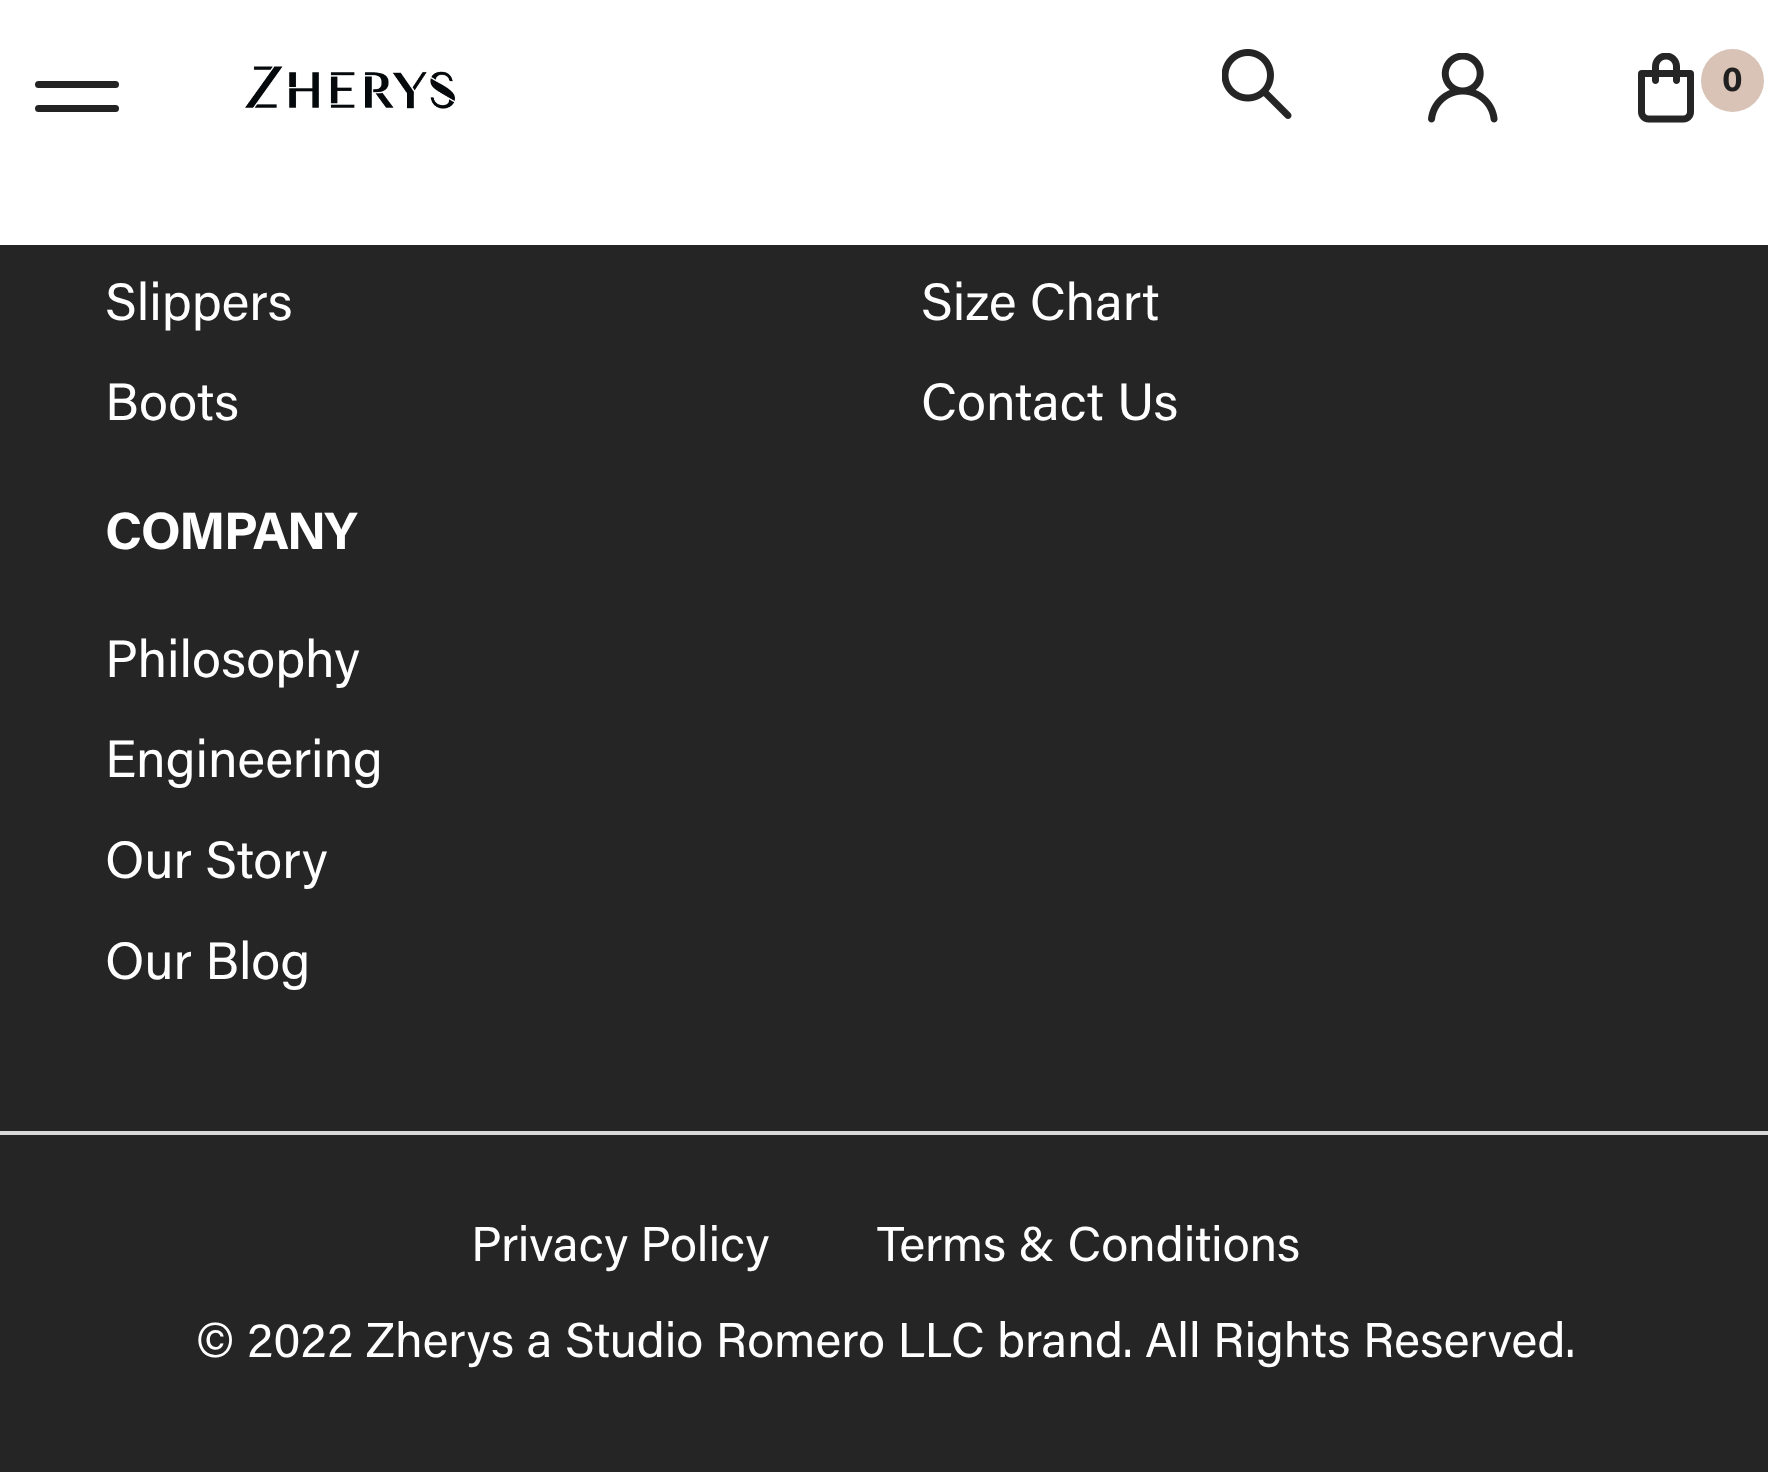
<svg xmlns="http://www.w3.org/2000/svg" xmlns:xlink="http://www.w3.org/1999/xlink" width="1768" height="1472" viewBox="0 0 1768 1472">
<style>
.cls-1{font:bold 35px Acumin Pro;fill:#202020}
.cls-2{font:52.5px Acumin Pro;fill:#ffffff}
.cls-3{font:bold 52.5px Acumin Pro;letter-spacing:-1.75px;fill:#ffffff}
.cls-4{font:49px Acumin Pro;fill:#ffffff}
</style>
<rect width="100%" height="100%" fill="#252525"/>
<rect fill="#ffffff" x="0" y="0" width="1768" height="245"/>
<rect fill="#232323" x="35" y="81" width="84" height="7" rx="3.5"/>
<rect fill="#232323" x="35" y="105" width="84" height="7" rx="3.5"/>
<image xlink:href="image0.png" x="245" y="66" width="210" height="43"/>
<image xlink:href="image1.png" x="1222" y="49" width="70" height="70"/>
<image xlink:href="image2.png" x="1428" y="53" width="70" height="70"/>
<image xlink:href="image3.png" x="1638" y="53" width="56" height="70"/>
<circle fill="#d8c3b6" cx="1732.5" cy="80.5" r="31.5"/>
<rect fill="#d8d8d8" x="0" y="1131" width="1768" height="4"/>
<text class="cls-1" x="1722" y="91">0</text>
<text class="cls-2"><tspan x="105" y="320">Slippers</tspan><tspan x="105" y="420">Boots</tspan></text>
<text class="cls-2"><tspan x="921" y="320">Size Chart</tspan><tspan x="921" y="420">Contact Us</tspan></text>
<text class="cls-3" x="105" y="549">COMPANY</text>
<text class="cls-2"><tspan x="105" y="677">Philosophy</tspan><tspan x="105" y="777">Engineering</tspan><tspan x="105" y="878">Our Story</tspan><tspan x="105" y="979">Our Blog</tspan></text>
<text class="cls-4" x="471" y="1261">Privacy Policy</text>
<text class="cls-4" x="877" y="1261">Terms &amp; Conditions</text>
<text class="cls-4" x="196" y="1357">© 2022 Zherys a Studio Romero LLC brand. All Rights Reserved.</text>
</svg>
